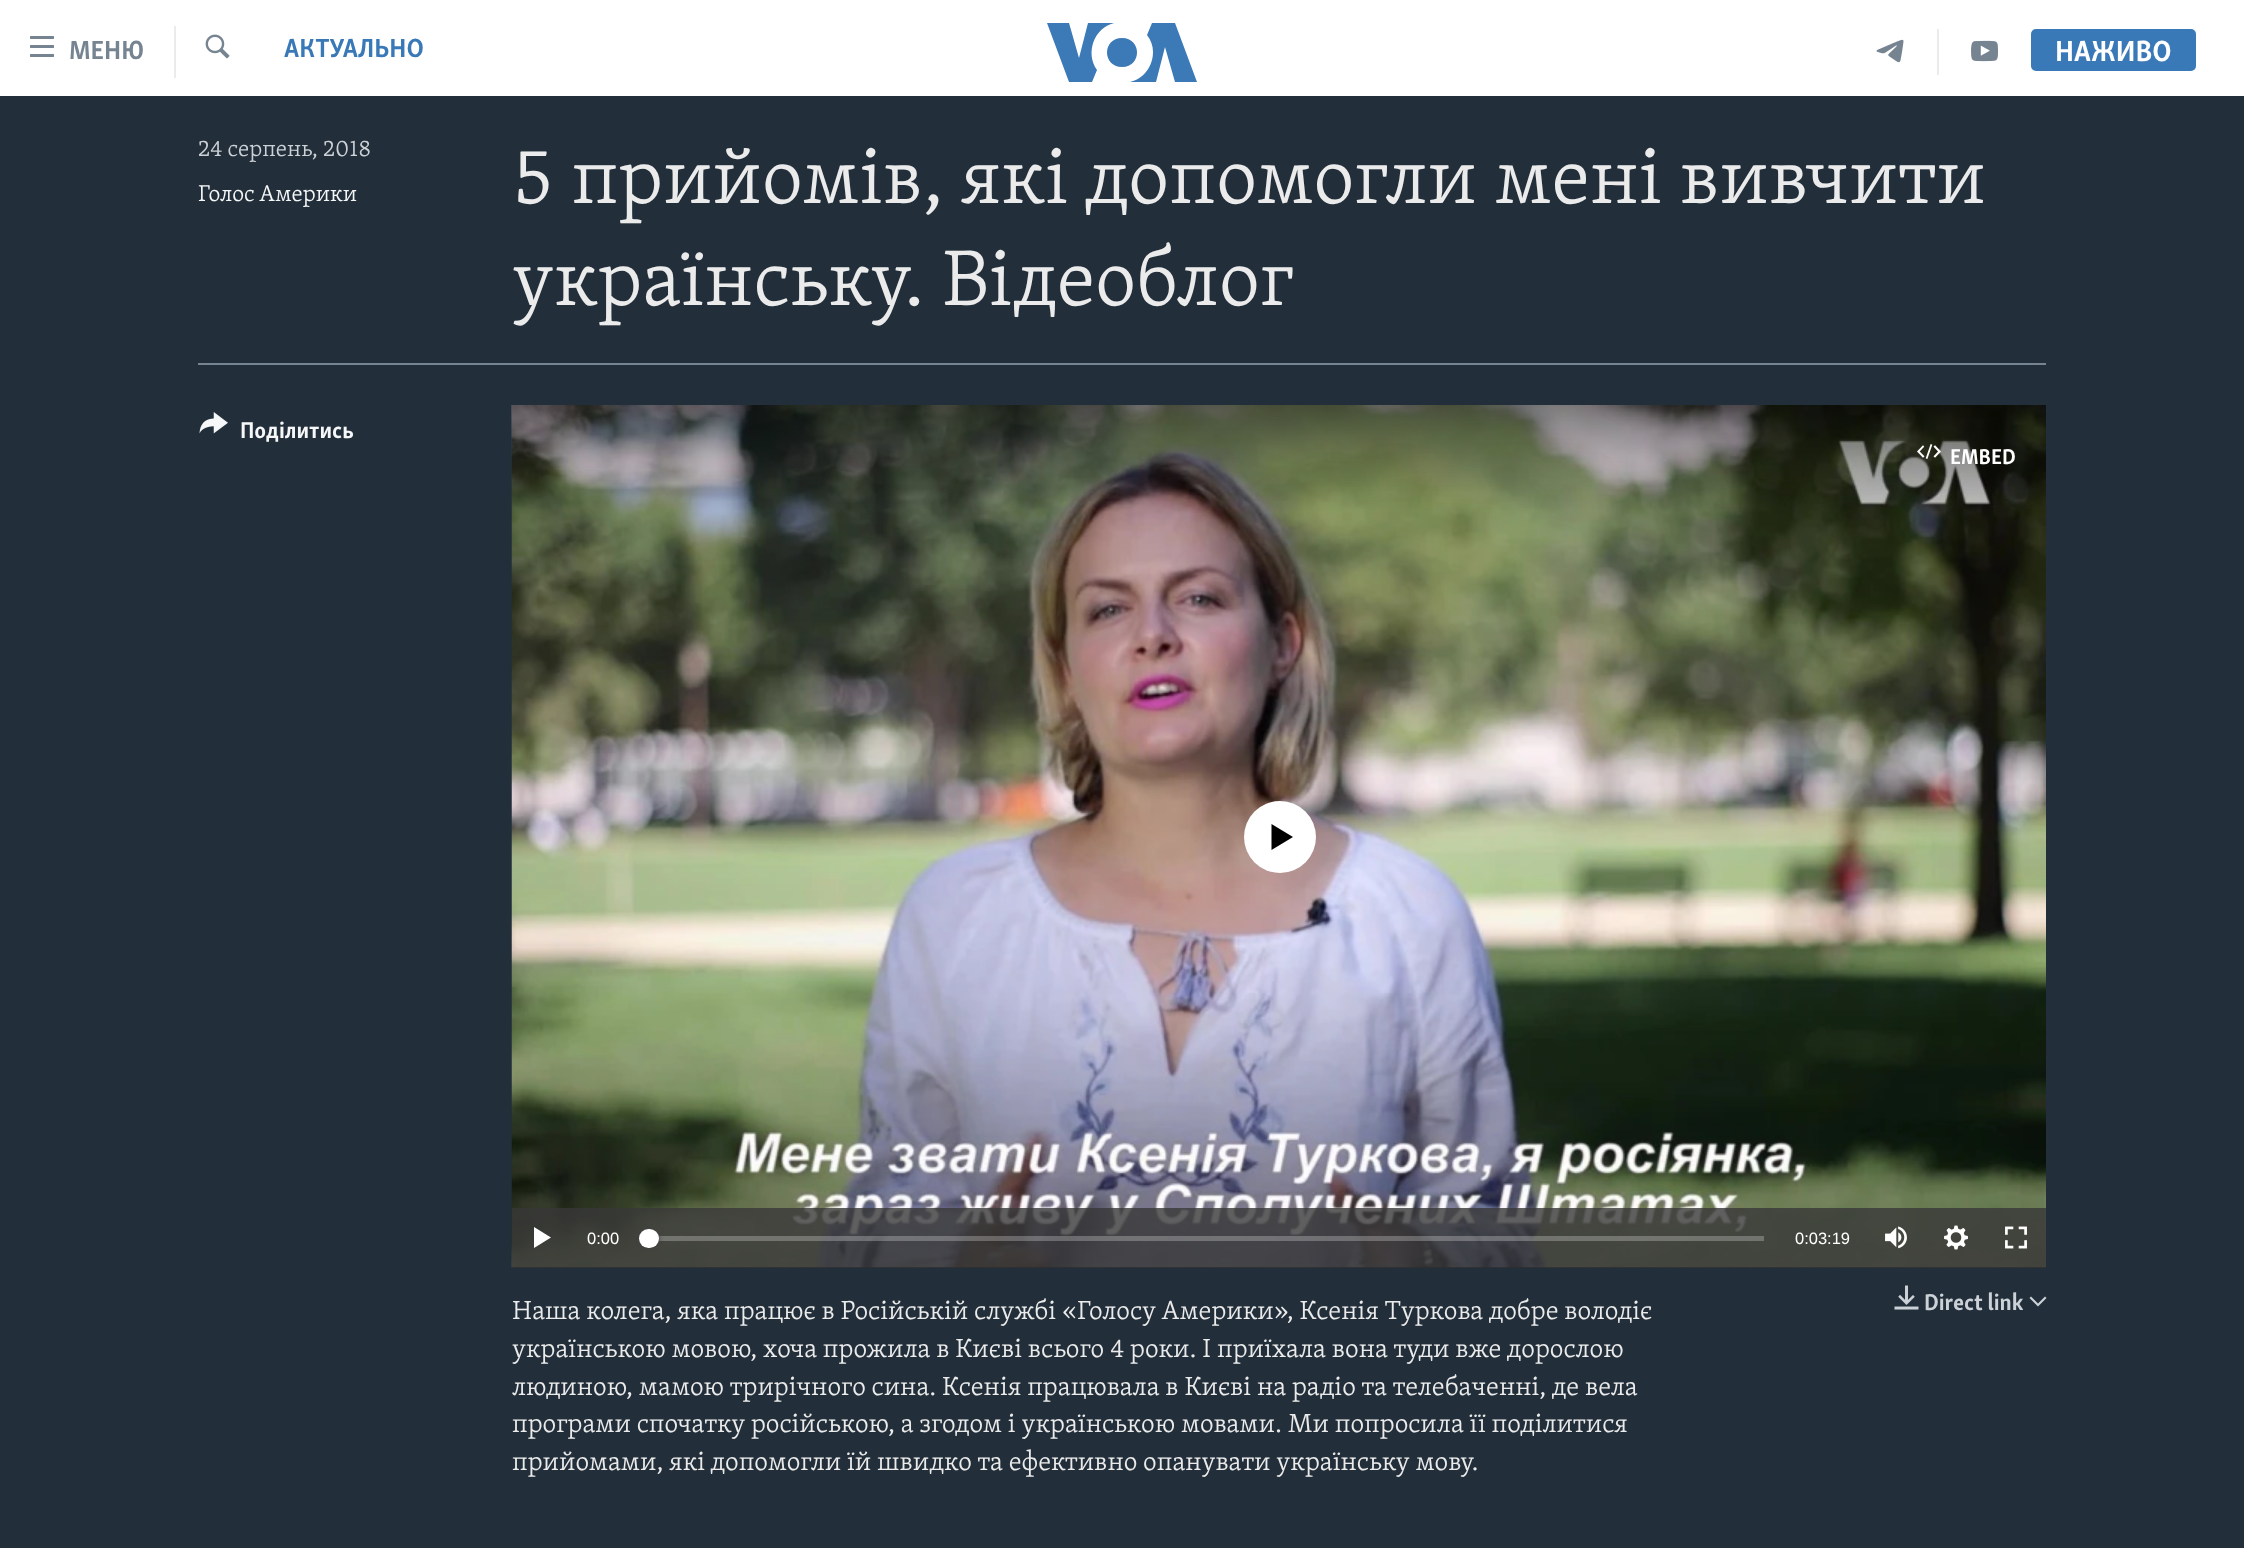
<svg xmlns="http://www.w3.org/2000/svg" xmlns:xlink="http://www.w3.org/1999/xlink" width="2244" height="1548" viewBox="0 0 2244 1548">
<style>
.cls-1{font:bold 27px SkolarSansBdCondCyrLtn;fill:#768492}
.cls-2{font:bold 27px SkolarSansBdCondCyrLtn;fill:#3a79b7}
.cls-3{font:bold 30px SkolarSansBdCondCyrLtn;fill:#ffffff}
.cls-4{font:300 23.5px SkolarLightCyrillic;fill:#cbd1d6}
.cls-5{font:300 23.5px SkolarLightCyrillic;fill:#f6f7f8}
.cls-6{font:300 81px SkolarLightCyrillic;fill:#ebebeb}
.cls-7{font:bold 23.5px SkolarSansBdCondCyrLtn;fill:#f6f7f8}
.cls-8{font:bold 22px SkolarSansBdCondCyrLtn;fill:#ffffff}
.cls-9{font:16.5px Liberation Sans;fill:#ffffff}
.cls-10{font:300 27px SkolarLightCyrillic;fill:#ebebeb}
.cls-11{font:bold 23.5px SkolarSansBdCondCyrLtn;fill:#cbd1d6}
</style>
<rect width="100%" height="100%" fill="#ffffff"/>
<image xlink:href="image0.png" x="30" y="36" width="24" height="21"/>
<rect fill="#ebebeb" x="174" y="26" width="2" height="52"/>
<image xlink:href="image1.png" x="205" y="34" width="25" height="25"/>
<path fill="#3b79b7" d="M1097 70L1092 82H1069L1047 23H1069L1079 58L1088 23H1114C1094 28 1085 53 1097 70ZM1122 38C1102 38 1102 67 1122 67C1142 67 1142 38 1122 38ZM1153 52C1153 67 1143 79 1130 82H1156L1165 47L1175 82H1197L1175 23H1152L1147 35C1151 40 1153 46 1153 52Z"/>
<rect fill="#ebebeb" x="1937" y="29" width="2" height="46"/>
<image xlink:href="image2.png" x="1876" y="39" width="28" height="24"/>
<image xlink:href="image3.png" x="1971" y="40" width="27" height="22"/>
<rect fill="#3a79b7" x="2031" y="29" width="165" height="42" rx="5"/>
<rect fill="#222f3a" x="0" y="96" width="2244" height="1452"/>
<rect fill="#768492" x="198" y="363" width="1848" height="2"/>
<image xlink:href="image4.png" x="199" y="412" width="29" height="22"/>
<rect fill="#000000" x="512" y="1267" width="1534" height="1"/>
<image xlink:href="image5.png" x="511" y="405" width="1535" height="863"/>
<image xlink:href="image6.png" x="1917" y="444" width="24" height="15"/>
<circle fill="#ffffff" cx="1280" cy="837" r="36"/>
<path fill="#000000" d="M1271.5 850L1293 837L1271.5 824Z"/>
<rect fill="#383838" fill-opacity="0.8" x="512" y="1208" width="1534" height="60"/>
<path fill="#ffffff" d="M534 1248L551 1237.5L534 1227Z"/>
<rect fill="#ffffff" fill-opacity="0.25" x="658" y="1236" width="1106" height="5"/>
<rect fill="#414144" filter="blur(2px)" x="639" y="1229" width="20" height="19" rx="9.5"/>
<rect fill="#ffffff" x="639" y="1229" width="20" height="19" rx="9.5"/>
<image xlink:href="image7.png" x="1885" y="1226" width="22" height="23"/>
<image xlink:href="image8.png" x="1944" y="1225" width="24" height="25"/>
<image xlink:href="image9.png" x="2005" y="1226" width="22" height="23"/>
<image xlink:href="image10.png" x="1894" y="1285" width="25" height="25"/>
<path fill="#cbd1d6" d="M2029.5 1298L2038 1306.5L2046.5 1298L2045 1296.5L2038 1303.5L2031 1296.5Z"/>
<text class="cls-1" x="69" y="59">МЕНЮ</text>
<text class="cls-2" x="284" y="57">АКТУАЛЬНО</text>
<text class="cls-3" x="2055" y="61">НАЖИВО</text>
<text class="cls-4" x="198" y="156">24 серпень, 2018</text>
<text class="cls-5" x="198" y="201">Голос Америки</text>
<text class="cls-6"><tspan x="512" y="203">5 прийомів, які допомогли мені вивчити</tspan><tspan x="512" y="305">українську. Відеоблог</tspan></text>
<text class="cls-7" x="240" y="438">Поділитись</text>
<text class="cls-8" x="1950" y="464">EMBED</text>
<text class="cls-9" x="587" y="1244">0:00</text>
<text class="cls-9" x="1795" y="1244">0:03:19</text>
<text class="cls-10"><tspan x="512" y="1319">Наша колега, яка працює в Російській службі «Голосу Америки», Ксенія Туркова добре володіє</tspan><tspan x="512" y="1357">українською мовою, хоча прожила в Києві всього 4 роки. І приїхала вона туди вже дорослою</tspan><tspan x="512" y="1395">людиною, мамою трирічного сина. Ксенія працювала в Києві на радіо та телебаченні, де вела</tspan><tspan x="512" y="1432">програми спочатку російською, а згодом і українською мовами. Ми попросила її поділитися</tspan><tspan x="512" y="1470">прийомами, які допомогли їй швидко та ефективно опанувати українську мову.</tspan></text>
<text class="cls-11" x="1924" y="1310">Direct link</text>
</svg>
